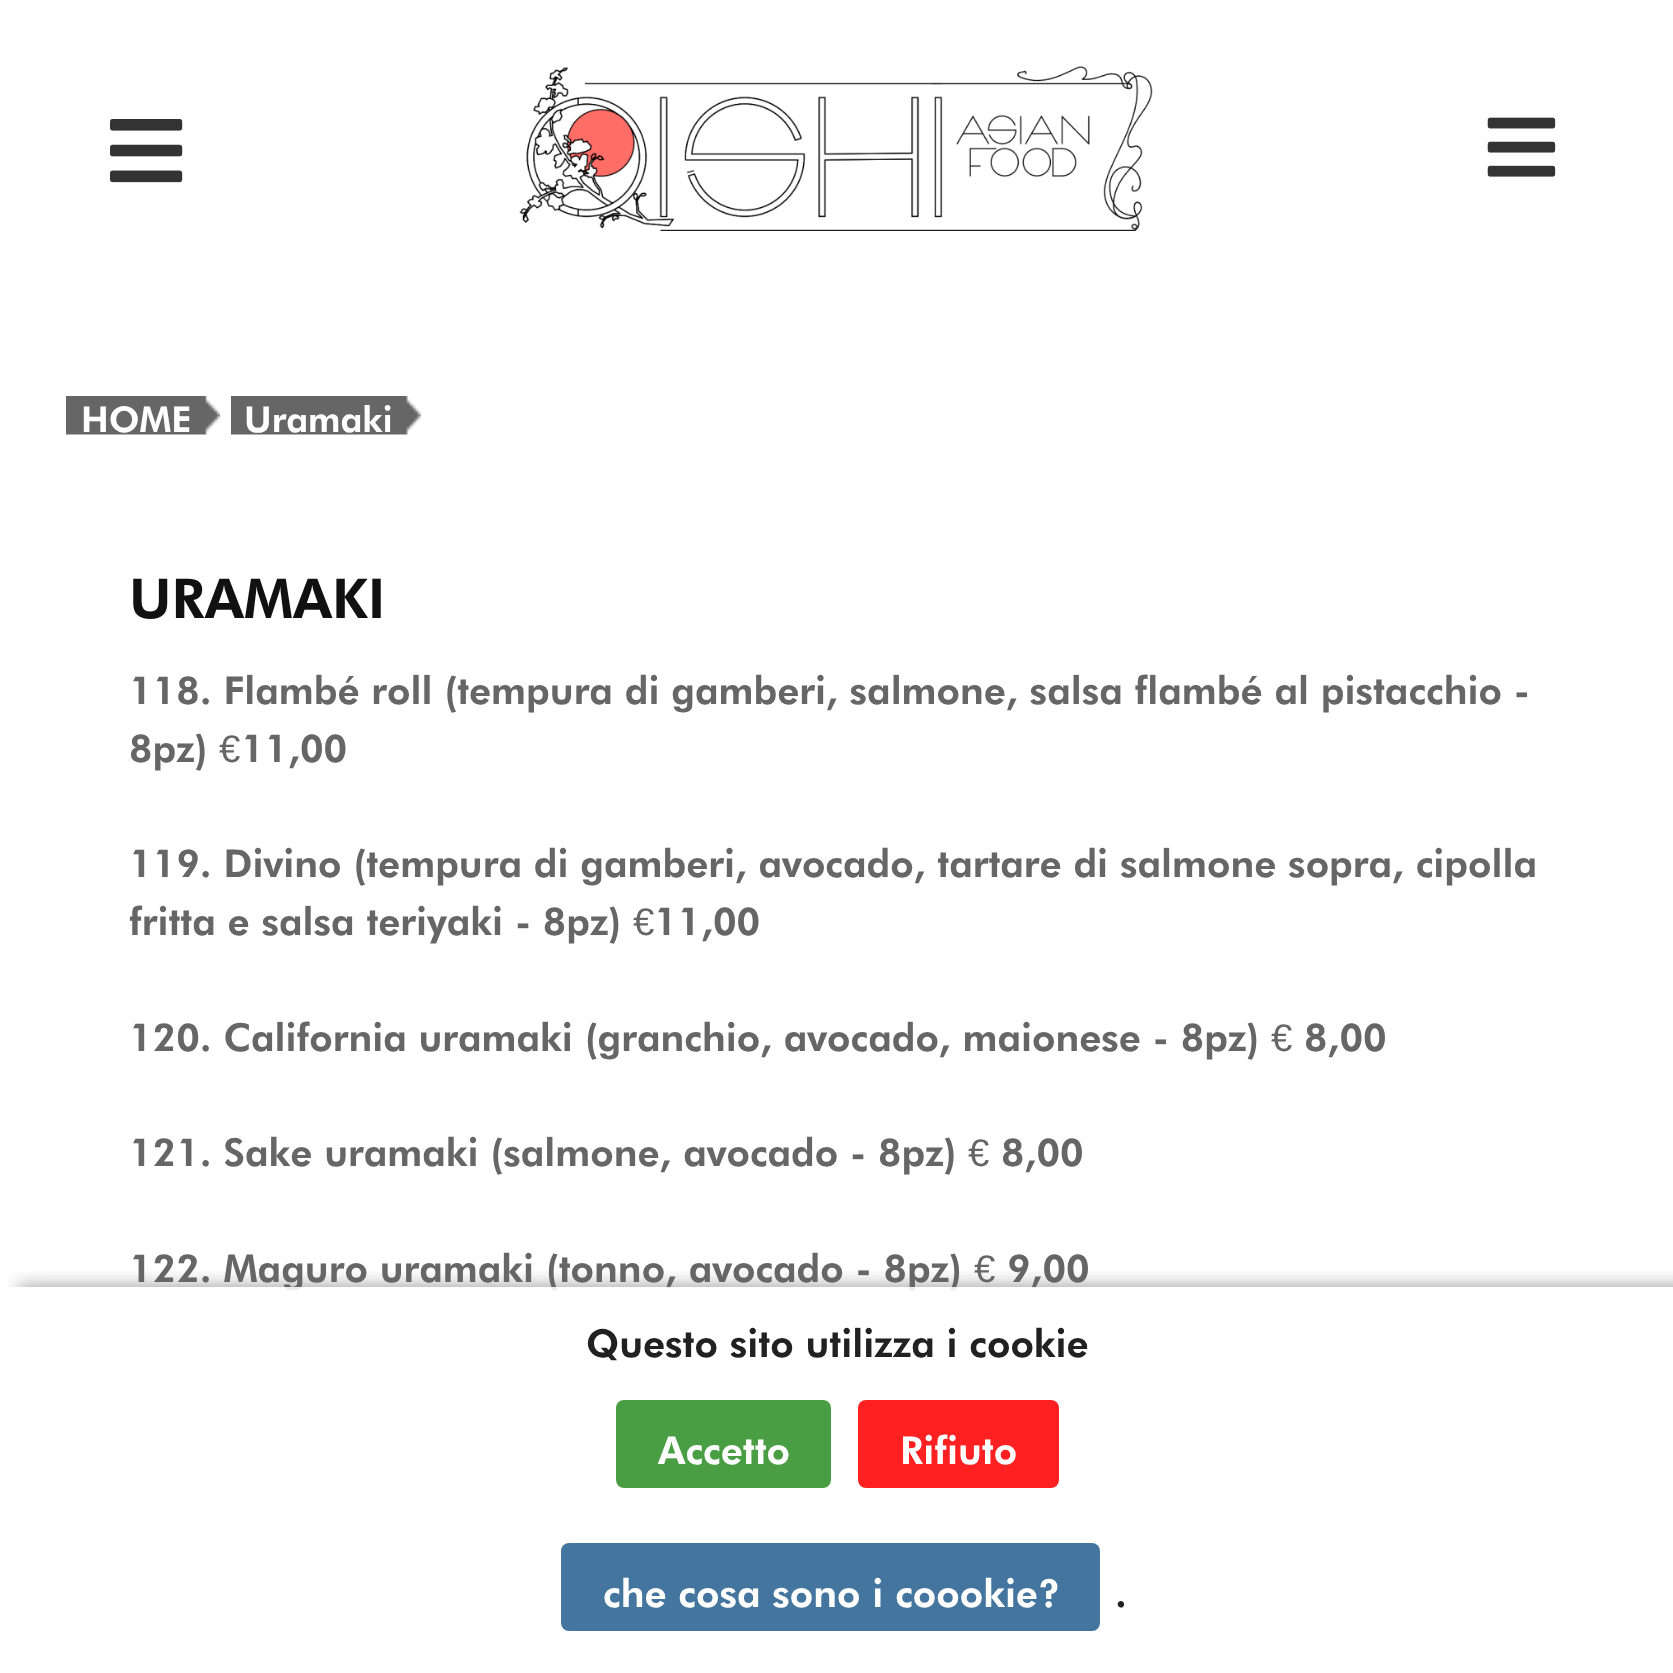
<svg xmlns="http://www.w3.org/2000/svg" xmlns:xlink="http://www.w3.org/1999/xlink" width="1673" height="1673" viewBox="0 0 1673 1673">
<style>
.cls-1{font:900 35.75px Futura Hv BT;fill:#ffffff}
.cls-2{font:900 55px Futura Hv BT;fill:#111111}
.cls-3{font:900 38.5px Futura Hv BT;fill:#666666}
.cls-4{font:38.5px Liberation Sans;fill:#666666}
.cls-5{font:900 38.5px Futura Hv BT;fill:#212121}
.cls-6{font:900 38.5px Futura Hv BT;fill:#ffffff}
</style>
<defs>
<clipPath id="clip1"><rect x="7" y="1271" width="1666" height="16"/></clipPath>
</defs>
<rect width="100%" height="100%" fill="#ffffff"/>
<image xlink:href="image0.png" x="110" y="119" width="73" height="64"/>
<image xlink:href="image1.png" x="519" y="66" width="634" height="165"/>
<image xlink:href="image2.png" x="1487" y="117" width="69" height="60"/>
<image xlink:href="image3.png" x="66" y="396" width="154" height="39"/>
<image xlink:href="image4.png" x="231" y="396" width="190" height="39"/>
<g clip-path="url(#clip1)">
<rect fill="#000000" fill-opacity="0.43" filter="blur(9.5px)" x="19" y="1287" width="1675" height="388"/>
</g>
<rect fill="#2e9028" fill-opacity="0.87" x="616" y="1400" width="215" height="88" rx="8"/>
<rect fill="#ff0000" fill-opacity="0.87" x="858" y="1400" width="201" height="88" rx="8"/>
<rect fill="#44759e" x="561" y="1543" width="539" height="88" rx="8"/>
<text class="cls-1" x="81" y="432">HOME</text>
<text class="cls-1" x="244" y="432">Uramaki</text>
<text class="cls-2" x="129" y="618">URAMAKI</text>
<text class="cls-3"><tspan x="129" y="704">118. Flambé roll (tempura di gamberi, salmone, salsa flambé al pistacchio -</tspan><tspan x="129" y="762">8pz)</tspan></text>
<text class="cls-4" x="219" y="762">€</text>
<text class="cls-3" x="241" y="762">11,00</text>
<text class="cls-3"><tspan x="129" y="877">119. Divino (tempura di gamberi, avocado, tartare di salmone sopra, cipolla</tspan><tspan x="129" y="935">fritta e salsa teriyaki - 8pz)</tspan></text>
<text class="cls-4" x="633" y="935">€</text>
<text class="cls-3" x="654" y="935">11,00</text>
<text class="cls-3" x="129" y="1051">120. California uramaki (granchio, avocado, maionese - 8pz)</text>
<text class="cls-4" x="1271" y="1051">€</text>
<text class="cls-3" x="1304" y="1051">8,00</text>
<text class="cls-3" x="129" y="1166">121. Sake uramaki (salmone, avocado - 8pz)</text>
<text class="cls-4" x="968" y="1166">€</text>
<text class="cls-3" x="1001" y="1166">8,00</text>
<text class="cls-3" x="129" y="1282">122. Maguro uramaki (tonno, avocado - 8pz)</text>
<text class="cls-4" x="974" y="1282">€</text>
<text class="cls-3" x="1007" y="1282">9,00</text>
<rect fill="#ffffff" fill-opacity="0.87" x="284" y="1287" width="752" height="4"/>
<text class="cls-5" x="586" y="1357">Questo sito utilizza i cookie</text>
<text class="cls-6" x="658" y="1464">Accetto</text>
<text class="cls-6" x="900" y="1464">Rifiuto</text>
<text class="cls-6" x="603" y="1607">che cosa sono i coookie?</text>
<text class="cls-5" x="1115" y="1607">.</text>
</svg>
